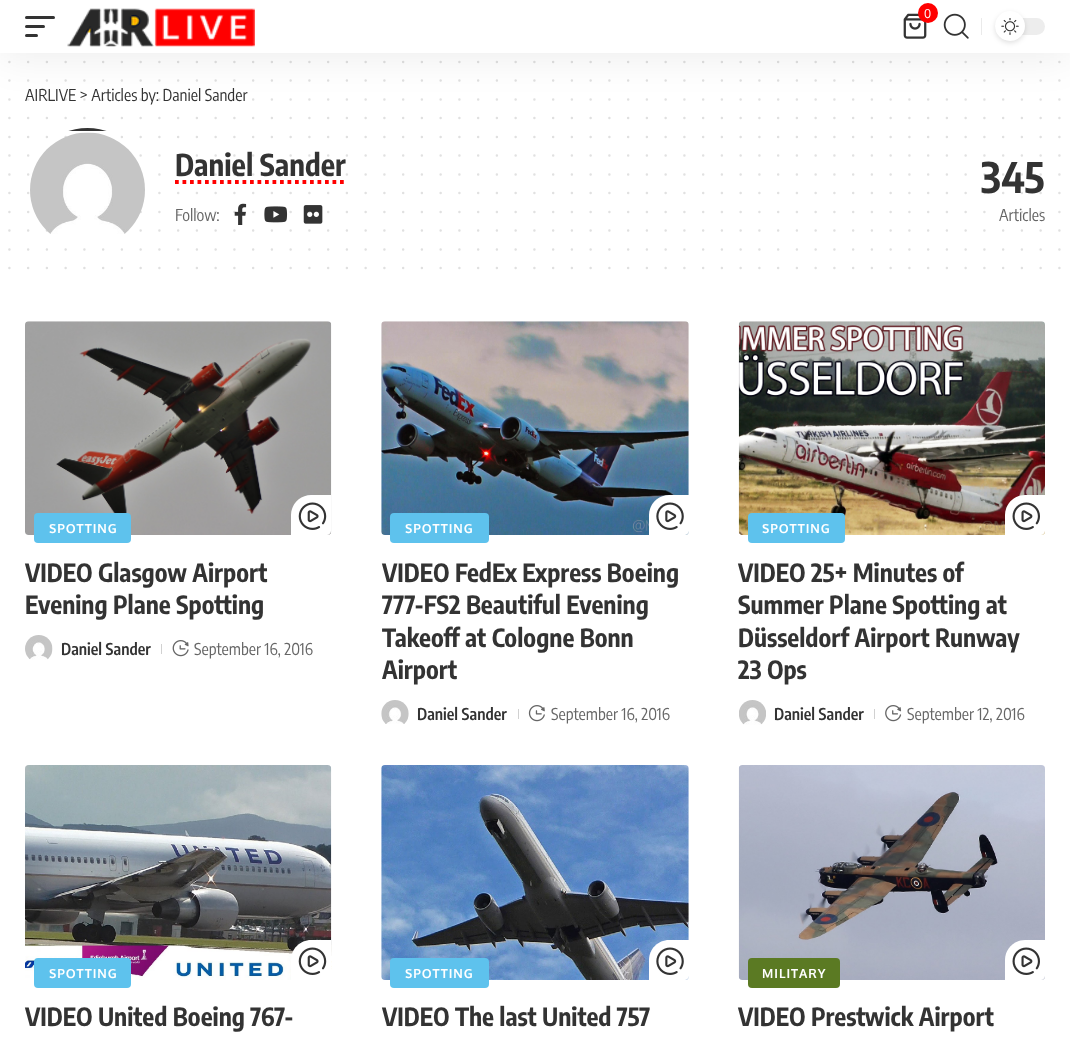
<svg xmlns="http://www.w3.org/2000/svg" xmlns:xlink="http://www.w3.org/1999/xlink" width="1070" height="1044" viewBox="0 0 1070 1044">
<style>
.cls-1{font:16.25px Encode Sans Condensed;fill:#333333}
.cls-2{font:12.5px Open Sans;fill:#ffffff}
.cls-3{font:bold 30px Encode Sans Condensed;fill:#333333}
.cls-4{font:16.25px Encode Sans Condensed;fill:#666666}
.cls-5{font:bold 42px Encode Sans Condensed;fill:#333333}
.cls-6{font:bold 12.5px Oxygen;letter-spacing:1px;fill:#ffffff}
.cls-7{font:bold 25px Encode Sans Condensed;fill:#333333}
.cls-8{font:600 16.25px Encode Sans Condensed;fill:#333333}
</style>
<defs>
<clipPath id="clip1"><rect x="25" y="128" width="125" height="125" rx="62.5"/></clipPath>
</defs>
<rect width="100%" height="100%" fill="#ffffff"/>
<path fill="none" stroke="#e0e0e0" stroke-width="2.5" stroke-linecap="round" stroke-dasharray="0 18.75" d="M9.4 61.9H1059.6"/>
<path fill="none" stroke="#e0e0e0" stroke-width="2.5" stroke-linecap="round" stroke-dasharray="0 18.75" d="M9.4 80.6H1059.6"/>
<path fill="none" stroke="#e0e0e0" stroke-width="2.5" stroke-linecap="round" stroke-dasharray="0 18.75" d="M9.4 118.1H1059.6"/>
<path fill="none" stroke="#e0e0e0" stroke-width="2.5" stroke-linecap="round" stroke-dasharray="0 18.75" d="M9.4 136.9H1059.6"/>
<path fill="none" stroke="#e0e0e0" stroke-width="2.5" stroke-linecap="round" stroke-dasharray="0 18.75" d="M9.4 230.6H1059.6"/>
<path fill="none" stroke="#e0e0e0" stroke-width="2.5" stroke-linecap="round" stroke-dasharray="0 18.75" d="M9.4 249.4H1059.6"/>
<path fill="none" stroke="#e0e0e0" stroke-width="2.5" stroke-linecap="round" stroke-dasharray="0 18.75" d="M9.4 268.1H1059.6"/>
<g clip-path="url(#clip1)">
<rect fill="#333333" x="68" y="128" width="39" height="3"/>
</g>
<path fill="none" stroke="#ff0000" stroke-width="3.8" stroke-dasharray="3.75 3.75" d="M175 182H346"/>
<image xlink:href="image5.png" x="234" y="203" width="13" height="22"/>
<image xlink:href="image6.png" x="264" y="206" width="24" height="17"/>
<image xlink:href="image7.png" x="303" y="205" width="20" height="19"/>
<image xlink:href="image8.png" x="25" y="321" width="307" height="214"/>
<path fill="#ffffff" d="M311 495H331V531C331 533 329 535 327 535H291V515C291 504 300 495 311 495Z"/>
<image xlink:href="image9.png" x="298" y="502" width="29" height="28"/>
<rect fill="#5ec2ed" x="34" y="513" width="97" height="30" rx="4"/>
<image xlink:href="image10.png" x="25" y="635" width="28" height="25"/>
<rect fill="#d1d1d1" x="161" y="644" width="1" height="10"/>
<image xlink:href="image11.png" x="172" y="640" width="17" height="17"/>
<image xlink:href="image12.png" x="381" y="321" width="308" height="214"/>
<path fill="#ffffff" d="M669 495H689V531C689 533 687 535 685 535H649V515C649 504 658 495 669 495Z"/>
<image xlink:href="image13.png" x="656" y="502" width="28" height="28"/>
<rect fill="#5ec2ed" x="390" y="513" width="99" height="30" rx="4"/>
<image xlink:href="image14.png" x="381" y="700" width="28" height="24"/>
<rect fill="#d1d1d1" x="518" y="709" width="1" height="10"/>
<image xlink:href="image15.png" x="528" y="705" width="17" height="17"/>
<image xlink:href="image16.png" x="738" y="321" width="307" height="214"/>
<path fill="#ffffff" d="M1025 495H1045V531C1045 533 1043 535 1041 535H1005V515C1005 504 1014 495 1025 495Z"/>
<image xlink:href="image17.png" x="1012" y="502" width="28" height="28"/>
<rect fill="#5ec2ed" x="748" y="513" width="97" height="30" rx="4"/>
<image xlink:href="image18.png" x="739" y="700" width="27" height="25"/>
<rect fill="#d1d1d1" x="874" y="709" width="1" height="10"/>
<image xlink:href="image19.png" x="885" y="705" width="17" height="17"/>
<image xlink:href="image20.png" x="25" y="765" width="307" height="215"/>
<path fill="#ffffff" d="M311 940H331V976C331 978 329 980 327 980H291V960C291 949 300 940 311 940Z"/>
<image xlink:href="image21.png" x="298" y="947" width="29" height="28"/>
<rect fill="#5ec2ed" x="34" y="958" width="97" height="30" rx="4"/>
<image xlink:href="image22.png" x="381" y="765" width="308" height="215"/>
<path fill="#ffffff" d="M669 940H689V976C689 978 687 980 685 980H649V960C649 949 658 940 669 940Z"/>
<image xlink:href="image23.png" x="656" y="947" width="28" height="28"/>
<rect fill="#5ec2ed" x="390" y="958" width="99" height="30" rx="4"/>
<image xlink:href="image24.png" x="738" y="765" width="307" height="215"/>
<path fill="#ffffff" d="M1025 940H1045V976C1045 978 1043 980 1041 980H1005V960C1005 949 1014 940 1025 940Z"/>
<image xlink:href="image25.png" x="1012" y="947" width="28" height="28"/>
<rect fill="#5b7a23" x="748" y="958" width="92" height="30" rx="4"/>
<text class="cls-1" x="25" y="101">AIRLIVE &gt; Articles by: Daniel Sander</text>
<path fill="none" stroke="#333333" stroke-opacity="0.15" stroke-width="2.5" stroke-linecap="round" stroke-dasharray="0 18.75" d="M9.4 99.4H1059.6"/>
<rect fill="#000000" fill-opacity="0.07" filter="blur(19px)" x="0" y="5" width="1070" height="53"/>
<rect fill="#ffffff" x="0" y="0" width="1070" height="53"/>
<image xlink:href="image1.png" x="903" y="13" width="24" height="26"/>
<circle fill="#ff0000" cx="928" cy="13" r="10"/>
<text class="cls-2" x="924" y="18">0</text>
<rect fill="#ededed" x="995" y="18" width="50" height="17" rx="8.5"/>
<rect fill="#000000" fill-opacity="0.12" filter="blur(2.5px)" x="995" y="13" width="30" height="30" rx="15"/>
<circle fill="#ffffff" cx="1010" cy="26" r="15"/>
<image xlink:href="image3.png" x="1001" y="18" width="18" height="17"/>
<rect fill="#eaeaea" x="981" y="18" width="1" height="17"/>
<image xlink:href="image2.png" x="943" y="13" width="26" height="26"/>
<rect fill="#333333" x="25" y="34" width="13" height="3" rx="1.5"/>
<rect fill="#333333" x="25" y="25" width="20" height="3" rx="1.5"/>
<rect fill="#333333" x="25" y="16" width="30" height="3" rx="1.5"/>
<image xlink:href="image0.png" x="67" y="8" width="188" height="39"/>
<text class="cls-3" x="175" y="176">Daniel Sander</text>
<path fill="none" stroke="#333333" stroke-opacity="0.15" stroke-width="2.5" stroke-linecap="round" stroke-dasharray="0 18.75" d="M9.4 155.6H1059.6"/>
<text class="cls-4" x="175" y="221">Follow:</text>
<text class="cls-5" x="981" y="193">345</text>
<path fill="none" stroke="#333333" stroke-opacity="0.15" stroke-width="2.5" stroke-linecap="round" stroke-dasharray="0 18.75" d="M9.4 193.1H1059.6"/>
<path fill="none" stroke="#333333" stroke-opacity="0.15" stroke-width="2.5" stroke-linecap="round" stroke-dasharray="0 18.75" d="M9.4 174.4H1059.6"/>
<text class="cls-4" x="999" y="221">Articles</text>
<path fill="none" stroke="#333333" stroke-opacity="0.15" stroke-width="2.5" stroke-linecap="round" stroke-dasharray="0 18.75" d="M9.4 211.9H1059.6"/>
<image xlink:href="image4.png" x="30" y="132" width="115" height="102"/>
<text class="cls-6" x="49" y="533">SPOTTING</text>
<text class="cls-7"><tspan x="25" y="582">VIDEO Glasgow Airport</tspan><tspan x="25" y="614">Evening Plane Spotting</tspan></text>
<text class="cls-8" x="61" y="655">Daniel Sander</text>
<text class="cls-4" x="194" y="655">September 16, 2016</text>
<text class="cls-6" x="405" y="533">SPOTTING</text>
<text class="cls-7"><tspan x="382" y="582">VIDEO FedEx Express Boeing</tspan><tspan x="382" y="614">777-FS2 Beautiful Evening</tspan><tspan x="382" y="647">Takeoff at Cologne Bonn</tspan><tspan x="382" y="679">Airport</tspan></text>
<text class="cls-8" x="417" y="720">Daniel Sander</text>
<text class="cls-4" x="551" y="720">September 16, 2016</text>
<text class="cls-6" x="762" y="533">SPOTTING</text>
<text class="cls-7"><tspan x="738" y="582">VIDEO 25+ Minutes of</tspan><tspan x="738" y="614">Summer Plane Spotting at</tspan><tspan x="738" y="647">Düsseldorf Airport Runway</tspan><tspan x="738" y="679">23 Ops</tspan></text>
<text class="cls-8" x="774" y="720">Daniel Sander</text>
<text class="cls-4" x="907" y="720">September 12, 2016</text>
<text class="cls-6" x="49" y="978">SPOTTING</text>
<text class="cls-7" x="25" y="1026">VIDEO United Boeing 767-</text>
<text class="cls-6" x="405" y="978">SPOTTING</text>
<text class="cls-7" x="382" y="1026">VIDEO The last United 757</text>
<text class="cls-6" x="762" y="978">MILITARY</text>
<text class="cls-7" x="738" y="1026">VIDEO Prestwick Airport</text>
</svg>
